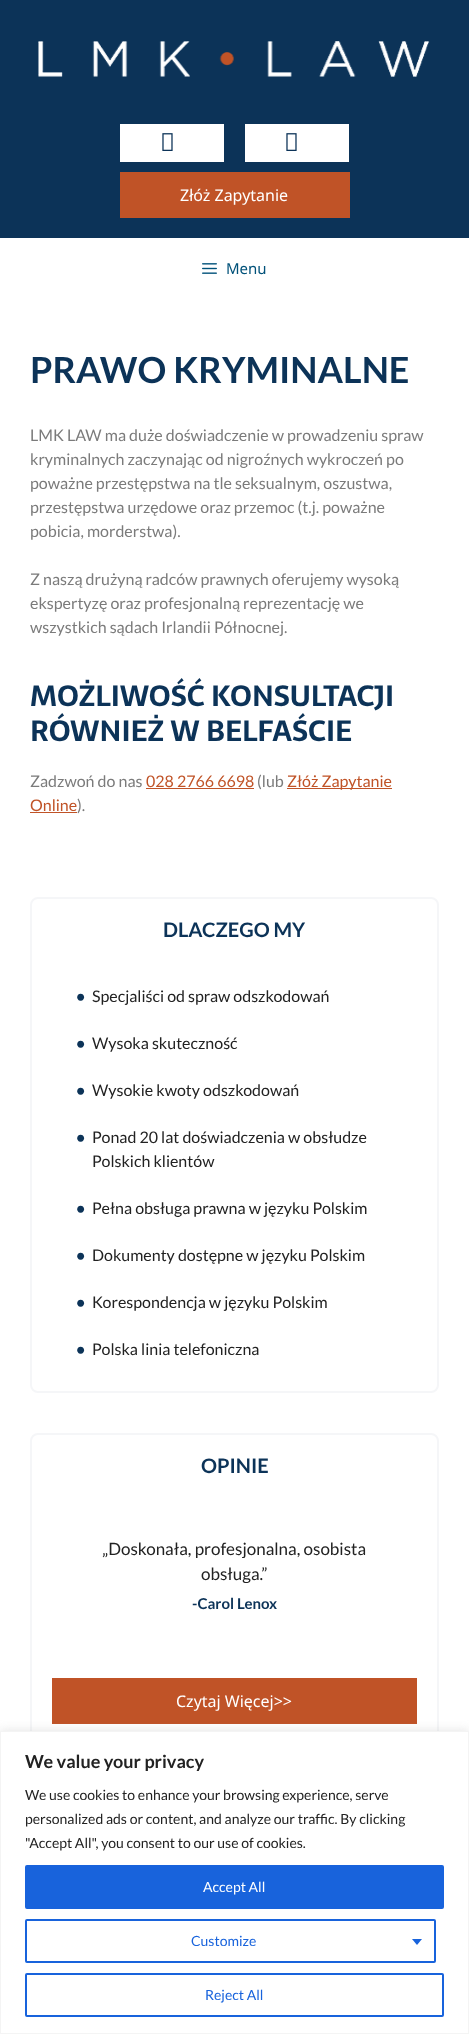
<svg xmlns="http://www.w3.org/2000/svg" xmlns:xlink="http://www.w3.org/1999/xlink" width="469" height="2034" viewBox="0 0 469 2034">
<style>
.cls-1{font:16px Noto Sans;fill:#ffffff}
.cls-2{font:15px Noto Sans;fill:#005179}
.cls-3{font:bold 36px Lato;fill:#0c3358}
.cls-4{font:16px Lato;fill:#7b7b7b}
.cls-5{font:bold 29px Sarala;fill:#0c3358}
.cls-6{font:16px Lato;fill:#c05327}
.cls-7{font:bold 20px Lato;fill:#0c3358}
.cls-8{font:bold 16px Lato;fill:#0c3358}
.cls-9{font:16px Lato;fill:#222222}
.cls-10{font:17px Lato;fill:#222222}
.cls-11{font:bold 15px Lato;fill:#0c3358}
.cls-12{font:bold 18px Lato;fill:#222222}
.cls-13{font:14px Lato;fill:#222222}
.cls-14{font:14px Lato;fill:#ffffff}
.cls-15{font:14px Lato;fill:#1863dc}
</style>
<rect width="100%" height="100%" fill="#ffffff"/>
<rect fill="#0c3358" x="0" y="0" width="469" height="238"/>
<image xlink:href="image0.png" x="38" y="41" width="392" height="36"/>
<rect fill="#ffffff" x="120" y="124" width="104" height="38"/>
<image xlink:href="image1.png" x="162" y="133" width="11" height="18"/>
<rect fill="#ffffff" x="245" y="124" width="104" height="38"/>
<image xlink:href="image1.png" x="286" y="133" width="11" height="18"/>
<rect fill="#c05327" x="120" y="172" width="230" height="46"/>
<image xlink:href="image2.png" x="202" y="263" width="15" height="11"/>
<rect fill="#c05327" x="146" y="788" width="108" height="1"/>
<rect fill="#c05327" x="287" y="788" width="105" height="1"/>
<rect fill="#c05327" x="30" y="812" width="47" height="1"/>
<rect fill="none" stroke="#f5f6f8" stroke-width="2" x="31" y="898" width="407" height="494" rx="7"/>
<rect fill="none" stroke="#f5f6f8" stroke-width="2" x="31" y="1434" width="407" height="320" rx="7"/>
<rect fill="#c05327" x="52" y="1678" width="365" height="46"/>
<rect fill="#acabab" fill-opacity="0.3" filter="blur(5px)" x="0" y="1730" width="469" height="303"/>
<rect fill="#ffffff" stroke="#f4f4f4" x="0.5" y="1731.5" width="468" height="302"/>
<rect fill="#1863dc" stroke="#1863dc" stroke-width="2" x="26" y="1866" width="417" height="42" rx="1"/>
<rect fill="none" stroke="#1863dc" stroke-width="2" x="26" y="1920" width="409" height="42" rx="1"/>
<path fill="#1863dc" d="M412 1939H422L417 1945Z"/>
<rect fill="none" stroke="#1863dc" stroke-width="2" x="26" y="1974" width="417" height="42" rx="1"/>
<text class="cls-1" x="180" y="201">Złóż Zapytanie</text>
<text class="cls-2" x="226" y="274">Menu</text>
<text class="cls-3" x="30" y="383">PRAWO KRYMINALNE</text>
<text class="cls-4"><tspan x="30" y="441">LMK LAW ma duże doświadczenie w prowadzeniu spraw</tspan><tspan x="30" y="465">kryminalnych zaczynając od nigroźnych wykroczeń po</tspan><tspan x="30" y="489">poważne przestępstwa na tle seksualnym, oszustwa,</tspan><tspan x="30" y="513">przestępstwa urzędowe oraz przemoc (t.j. poważne</tspan><tspan x="30" y="537">pobicia, morderstwa).</tspan></text>
<text class="cls-4"><tspan x="30" y="585">Z naszą drużyną radców prawnych oferujemy wysoką</tspan><tspan x="30" y="609">ekspertyzę oraz profesjonalną reprezentację we</tspan><tspan x="30" y="633">wszystkich sądach Irlandii Północnej.</tspan></text>
<text class="cls-5"><tspan x="30" y="706">MOŻLIWOŚĆ KONSULTACJI</tspan><tspan x="30" y="741">RÓWNIEŻ W BELFAŚCIE</tspan></text>
<text class="cls-4" x="30" y="787">Zadzwoń do nas</text>
<text class="cls-6" x="146" y="787">028 2766 6698</text>
<text class="cls-4" x="257" y="787">(lub</text>
<text class="cls-6" x="287" y="787">Złóż Zapytanie</text>
<text class="cls-6" x="30" y="811">Online</text>
<text class="cls-4" x="77" y="811">).</text>
<text class="cls-7" x="163" y="937">DLACZEGO MY</text>
<text class="cls-8" x="76" y="1002">•</text>
<text class="cls-9" x="92" y="1002">Specjaliści od spraw odszkodowań</text>
<text class="cls-8" x="76" y="1049">•</text>
<text class="cls-9" x="92" y="1049">Wysoka skuteczność</text>
<text class="cls-8" x="76" y="1096">•</text>
<text class="cls-9" x="92" y="1096">Wysokie kwoty odszkodowań</text>
<text class="cls-8" x="76" y="1143">•</text>
<text class="cls-9"><tspan x="92" y="1143">Ponad 20 lat doświadczenia w obsłudze</tspan><tspan x="92" y="1167">Polskich klientów</tspan></text>
<text class="cls-8" x="76" y="1214">•</text>
<text class="cls-9" x="92" y="1214">Pełna obsługa prawna w języku Polskim</text>
<text class="cls-8" x="76" y="1261">•</text>
<text class="cls-9" x="92" y="1261">Dokumenty dostępne w języku Polskim</text>
<text class="cls-8" x="76" y="1308">•</text>
<text class="cls-9" x="92" y="1308">Korespondencja w języku Polskim</text>
<text class="cls-8" x="76" y="1355">•</text>
<text class="cls-9" x="92" y="1355">Polska linia telefoniczna</text>
<text class="cls-7" x="201" y="1473">OPINIE</text>
<text class="cls-10" x="102" y="1555">„Doskonała, profesjonalna, osobista</text>
<text class="cls-10" x="201" y="1580">obsługa.”</text>
<text class="cls-11" x="192" y="1609">-Carol Lenox</text>
<text class="cls-1" x="176" y="1707">Czytaj Więcej&gt;&gt;</text>
<text class="cls-12" x="25" y="1768">We value your privacy</text>
<text class="cls-13"><tspan x="25" y="1800">We use cookies to enhance your browsing experience, serve</tspan><tspan x="25" y="1824">personalized ads or content, and analyze our traffic. By clicking</tspan><tspan x="25" y="1848">"Accept All", you consent to our use of cookies.</tspan></text>
<text class="cls-14" x="203" y="1892">Accept All</text>
<text class="cls-15" x="191" y="1946">Customize</text>
<text class="cls-15" x="205" y="2000">Reject All</text>
</svg>
